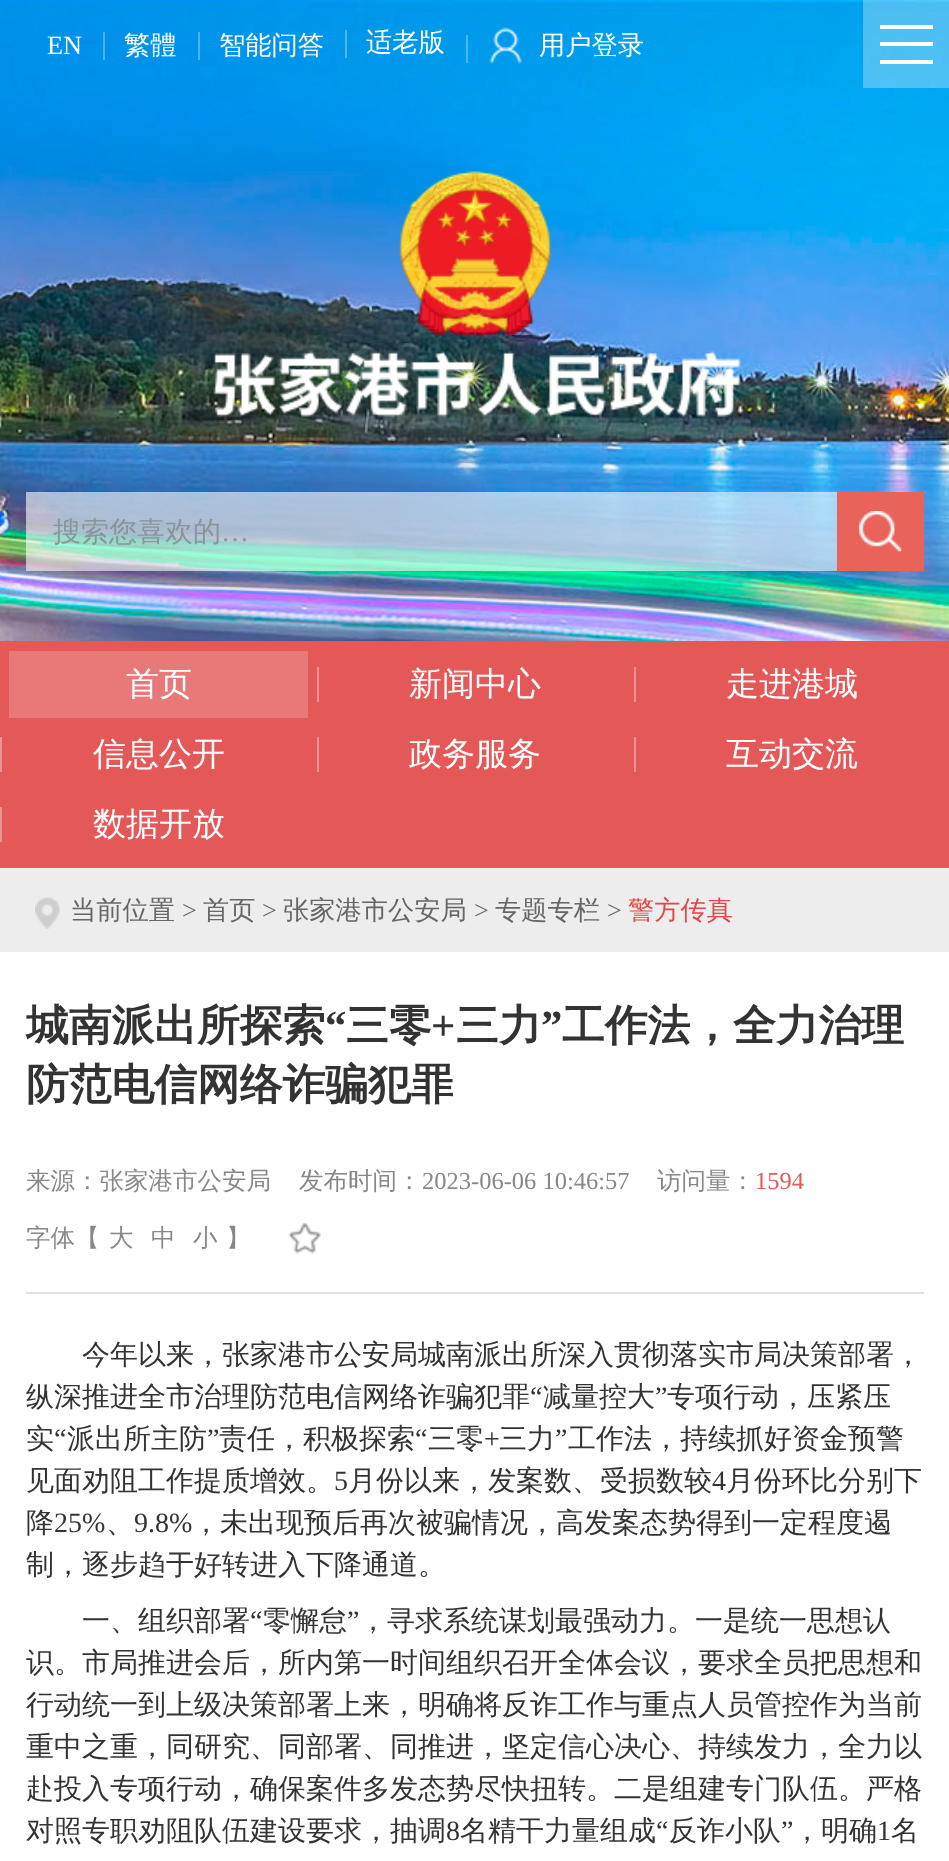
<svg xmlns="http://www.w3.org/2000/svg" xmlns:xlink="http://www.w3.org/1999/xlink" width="949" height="1861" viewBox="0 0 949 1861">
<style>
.cls-1{font:26.25px Liberation Serif;fill:#ffffff}
.cls-2{font:500 26.25px WenQuanYi Zen Hei;fill:#ffffff}
.cls-3{font:500 28px WenQuanYi Zen Hei;fill:#899599}
.cls-4{font:28px Liberation Serif;fill:#90979c}
.cls-5{font:500 33px WenQuanYi Zen Hei;fill:#ffffff}
.cls-6{font:500 26.25px WenQuanYi Zen Hei;fill:#666666}
.cls-7{font:26.25px Liberation Serif;fill:#666666}
.cls-8{font:500 26.25px WenQuanYi Zen Hei;fill:#e34747}
.cls-9{font:bold 42.75px WenQuanYi Zen Hei;fill:#333333}
.cls-10{font:bold 42.75px Liberation Serif;fill:#333333}
.cls-11{font:500 24.5px WenQuanYi Zen Hei;fill:#888888}
.cls-12{font:24.5px Liberation Serif;fill:#888888}
.cls-13{font:24.5px Liberation Serif;fill:#e45858}
.cls-14{font:500 28px WenQuanYi Zen Hei;fill:#333333}
.cls-15{font:28px Liberation Serif;fill:#333333}
</style>
<rect width="100%" height="100%" fill="#ffffff"/>
<image xlink:href="image0.png" x="0" y="0" width="949" height="641"/>
<rect fill="#ffffff" fill-opacity="0.3" x="103" y="32" width="2" height="28"/>
<rect fill="#4db3f1" x="198" y="32" width="2" height="28"/>
<rect fill="#4db6f0" x="345" y="30" width="2" height="28"/>
<rect fill="#ffffff" fill-opacity="0.3" x="466" y="35" width="2" height="28"/>
<image xlink:href="image1.png" x="489" y="27" width="33" height="37"/>
<image xlink:href="image2.png" x="213" y="171" width="528" height="246"/>
<rect fill="#ffffff" fill-opacity="0.6" x="26" y="492" width="811" height="79"/>
<rect fill="#e9635b" x="837" y="492" width="87" height="79"/>
<image xlink:href="image3.png" x="859" y="511" width="43" height="41"/>
<rect fill="#ffffff" fill-opacity="0.3" x="863" y="0" width="86" height="88"/>
<rect fill="#ffffff" x="880" y="25" width="53" height="4"/>
<rect fill="#ffffff" x="880" y="42" width="53" height="4"/>
<rect fill="#ffffff" x="880" y="60" width="53" height="4"/>
<rect fill="#e45858" x="0" y="641" width="949" height="227"/>
<rect fill="#e97979" x="9" y="651" width="299" height="67"/>
<rect fill="#ed9292" x="317" y="667" width="2" height="35"/>
<rect fill="#ed9292" x="634" y="667" width="2" height="35"/>
<rect fill="#ed9292" x="0" y="737" width="2" height="35"/>
<rect fill="#ed9292" x="317" y="737" width="2" height="35"/>
<rect fill="#ed9292" x="634" y="737" width="2" height="35"/>
<rect fill="#ed9292" x="0" y="807" width="2" height="35"/>
<rect fill="#ededed" x="0" y="868" width="949" height="84"/>
<image xlink:href="image4.png" x="35" y="897" width="25" height="32"/>
<rect fill="#e1e1e1" x="26" y="1292" width="898" height="2"/>
<image xlink:href="image5.png" x="288" y="1222" width="33" height="32"/>
<text class="cls-1" x="47" y="54">EN</text>
<text class="cls-2" x="124" y="54">繁體</text>
<text class="cls-2" x="219" y="54">智能问答</text>
<text class="cls-2" x="366" y="51">适老版</text>
<text class="cls-2" x="539" y="54">用户登录</text>
<text class="cls-3" x="53" y="541">搜索您喜欢的</text>
<text class="cls-4" x="221" y="541">…</text>
<text class="cls-5" x="126" y="695">首页</text>
<text class="cls-5" x="409" y="695">新闻中心</text>
<text class="cls-5" x="726" y="695">走进港城</text>
<text class="cls-5" x="93" y="765">信息公开</text>
<text class="cls-5" x="409" y="765">政务服务</text>
<text class="cls-5" x="726" y="765">互动交流</text>
<text class="cls-5" x="93" y="835">数据开放</text>
<text class="cls-6" x="70" y="919">当前位置</text>
<text class="cls-7" x="182" y="919">&gt;</text>
<text class="cls-6" x="203" y="919">首页</text>
<text class="cls-7" x="262" y="919">&gt;</text>
<text class="cls-6" x="283" y="919">张家港市公安局</text>
<text class="cls-7" x="474" y="919">&gt;</text>
<text class="cls-6" x="495" y="919">专题专栏</text>
<text class="cls-7" x="607" y="919">&gt;</text>
<text class="cls-8" x="628" y="919">警方传真</text>
<text class="cls-9" x="26" y="1040">城南派出所探索</text>
<text class="cls-10" x="325" y="1040">“</text>
<text class="cls-9" x="346" y="1040">三零</text>
<text class="cls-10" x="431" y="1040">+</text>
<text class="cls-9" x="456" y="1040">三力</text>
<text class="cls-10" x="541" y="1040">”</text>
<text class="cls-9" x="562" y="1040">工作法，全力治理</text>
<text class="cls-9" x="26" y="1099">防范电信网络诈骗犯罪</text>
<text class="cls-11" x="26" y="1189">来源：张家港市公安局</text>
<text class="cls-11" x="299" y="1189">发布时间：</text>
<text class="cls-12" x="422" y="1189">2023-06-06 10:46:57</text>
<text class="cls-11" x="657" y="1189">访问量：</text>
<text class="cls-13" x="755" y="1189">1594</text>
<text class="cls-11" x="26" y="1246">字体【</text>
<text class="cls-11" x="109" y="1246">大</text>
<text class="cls-11" x="151" y="1246">中</text>
<text class="cls-11" x="193" y="1246">小</text>
<text class="cls-11" x="226" y="1246">】</text>
<text class="cls-14" x="82" y="1364">今年以来，张家港市公安局城南派出所深入贯彻落实市局决策部署，</text>
<text class="cls-14" x="26" y="1406">纵深推进全市治理防范电信网络诈骗犯罪</text>
<text class="cls-15" x="530" y="1406">“</text>
<text class="cls-14" x="543" y="1406">减量控大</text>
<text class="cls-15" x="655" y="1406">”</text>
<text class="cls-14" x="667" y="1406">专项行动，压紧压</text>
<text class="cls-14" x="26" y="1448">实</text>
<text class="cls-15" x="54" y="1448">“</text>
<text class="cls-14" x="67" y="1448">派出所主防</text>
<text class="cls-15" x="207" y="1448">”</text>
<text class="cls-14" x="219" y="1448">责任，积极探索</text>
<text class="cls-15" x="415" y="1448">“</text>
<text class="cls-14" x="428" y="1448">三零</text>
<text class="cls-15" x="484" y="1448">+</text>
<text class="cls-14" x="499" y="1448">三力</text>
<text class="cls-15" x="555" y="1448">”</text>
<text class="cls-14" x="568" y="1448">工作法，持续抓好资金预警</text>
<text class="cls-14" x="26" y="1490">见面劝阻工作提质增效。</text>
<text class="cls-15" x="334" y="1490">5</text>
<text class="cls-14" x="348" y="1490">月份以来，发案数、受损数较</text>
<text class="cls-15" x="712" y="1490">4</text>
<text class="cls-14" x="726" y="1490">月份环比分别下</text>
<text class="cls-14" x="26" y="1532">降</text>
<text class="cls-15" x="54" y="1532">25%</text>
<text class="cls-14" x="106" y="1532">、</text>
<text class="cls-15" x="134" y="1532">9.8%</text>
<text class="cls-14" x="192" y="1532">，未出现预后再次被骗情况，高发案态势得到一定程度遏</text>
<text class="cls-14" x="26" y="1574">制，逐步趋于好转进入下降通道。</text>
<text class="cls-14" x="82" y="1630">一、组织部署</text>
<text class="cls-15" x="250" y="1630">“</text>
<text class="cls-14" x="263" y="1630">零懈怠</text>
<text class="cls-15" x="347" y="1630">”</text>
<text class="cls-14" x="359" y="1630">，寻求系统谋划最强动力。一是统一思想认</text>
<text class="cls-14"><tspan x="26" y="1672">识。市局推进会后，所内第一时间组织召开全体会议，要求全员把思想和</tspan><tspan x="26" y="1714">行动统一到上级决策部署上来，明确将反诈工作与重点人员管控作为当前</tspan><tspan x="26" y="1756">重中之重，同研究、同部署、同推进，坚定信心决心、持续发力，全力以</tspan><tspan x="26" y="1798">赴投入专项行动，确保案件多发态势尽快扭转。二是组建专门队伍。严格</tspan><tspan x="26" y="1840">对照专职劝阻队伍建设要求，抽调</tspan></text>
<text class="cls-15" x="446" y="1840">8</text>
<text class="cls-14" x="460" y="1840">名精干力量组成</text>
<text class="cls-15" x="656" y="1840">“</text>
<text class="cls-14" x="669" y="1840">反诈小队</text>
<text class="cls-15" x="781" y="1840">”</text>
<text class="cls-14" x="793" y="1840">，明确</text>
<text class="cls-15" x="877" y="1840">1</text>
<text class="cls-14" x="891" y="1840">名</text>
</svg>
